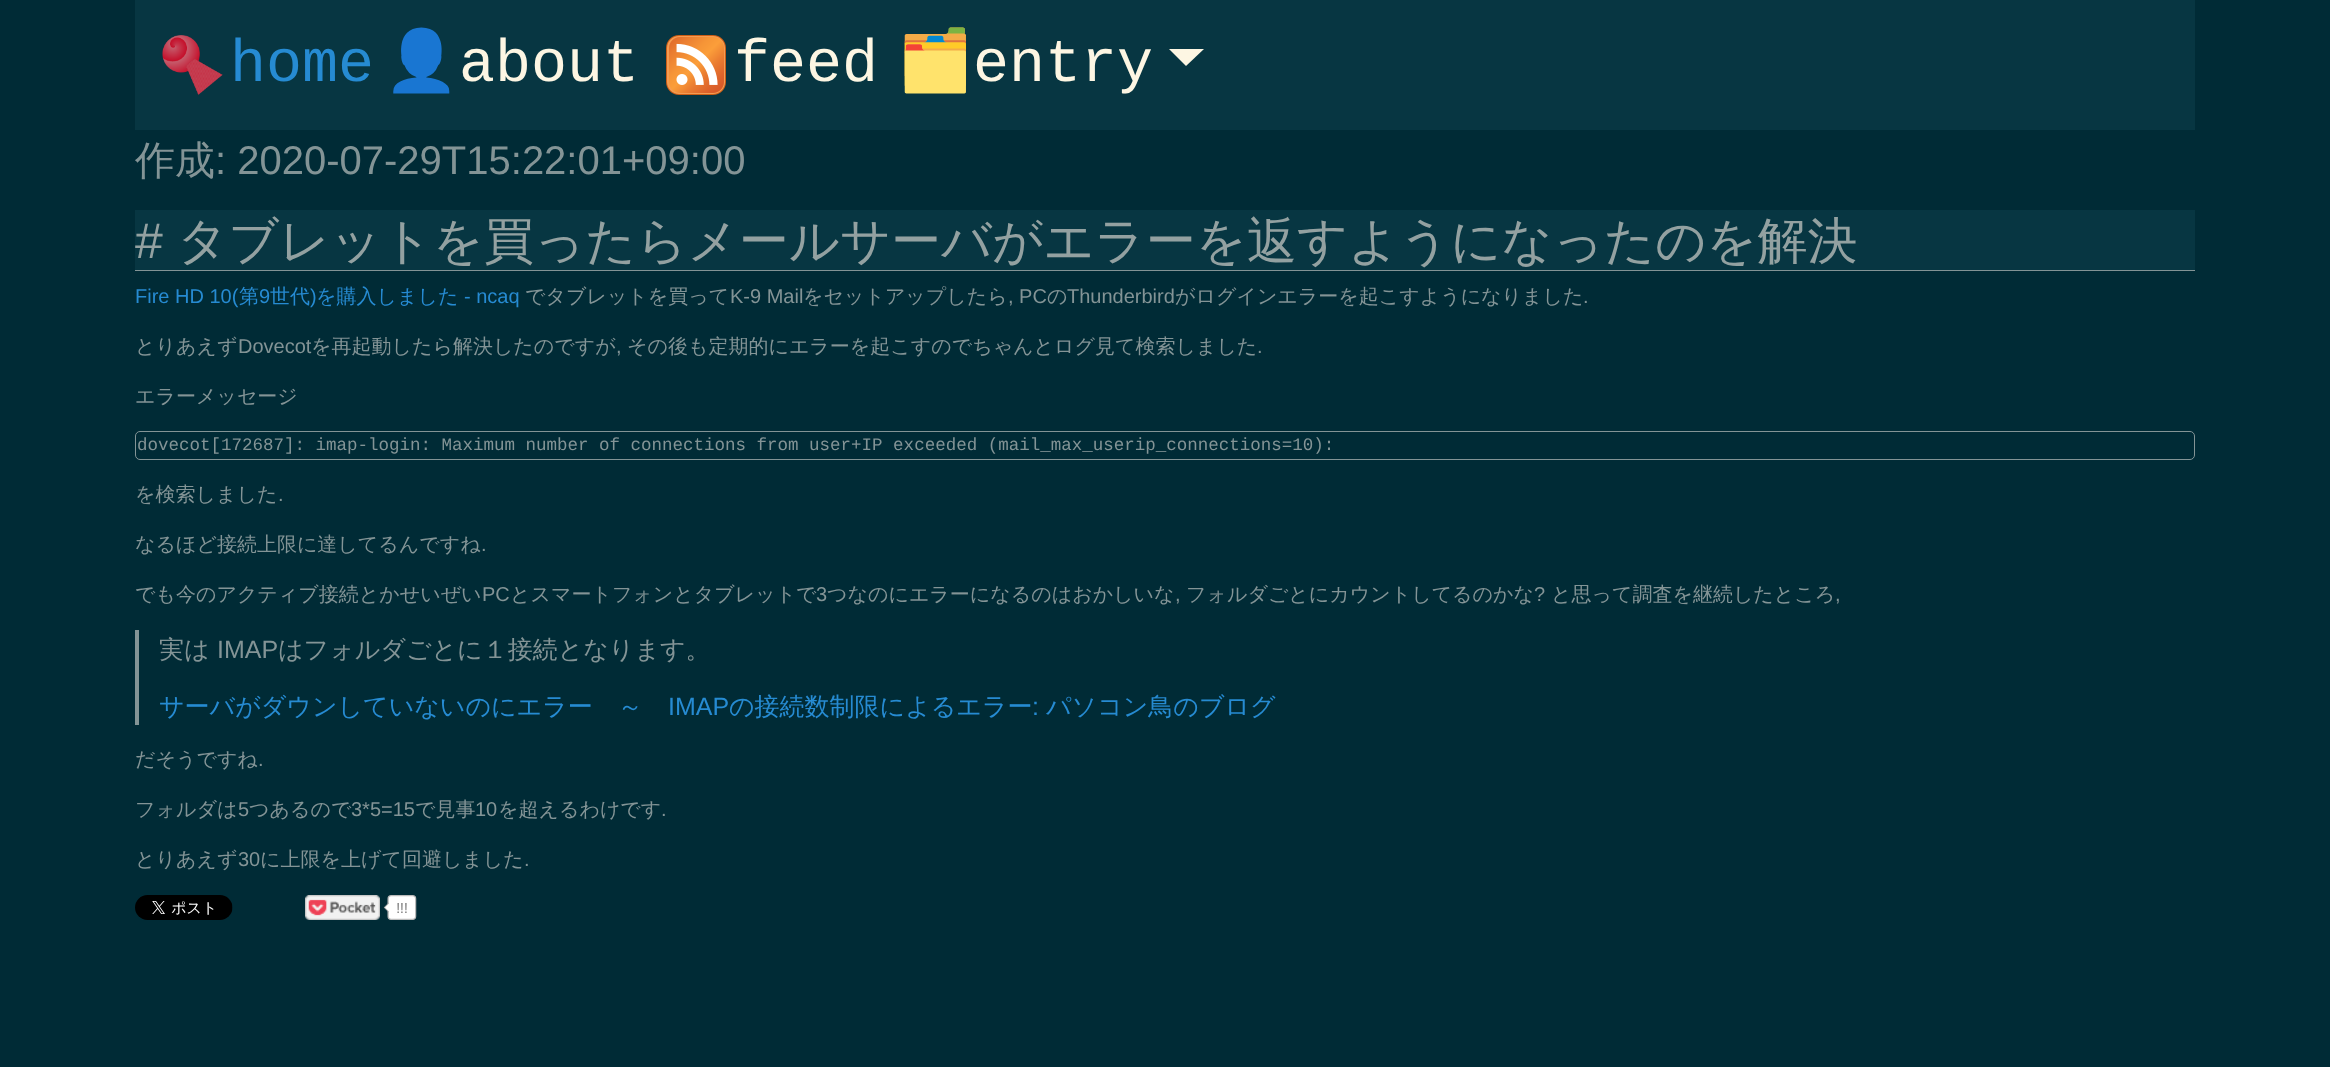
<svg xmlns="http://www.w3.org/2000/svg" xmlns:xlink="http://www.w3.org/1999/xlink" width="2330" height="1067" viewBox="0 0 2330 1067">
<style>
.cls-1{font:60px Liberation Mono;fill:#268bd2}
.cls-2{font:60px Noto Color Emoji;fill:#fdf6e3}
.cls-3{font:60px Liberation Mono;fill:#fdf6e3}
.cls-4{font:500 40px WenQuanYi Zen Hei;fill:#839496}
.cls-5{font:40px Liberation Sans;fill:#839496}
.cls-6{font:50px Liberation Sans;fill:#93a1a1}
.cls-7{font:500 50px WenQuanYi Zen Hei;fill:#93a1a1}
.cls-8{font:20px Liberation Sans;fill:#268bd2}
.cls-9{font:500 20px WenQuanYi Zen Hei;fill:#268bd2}
.cls-10{font:500 20px WenQuanYi Zen Hei;fill:#839496}
.cls-11{font:20px Liberation Sans;fill:#839496}
.cls-12{font:17.5px Liberation Mono;fill:#839496}
.cls-13{font:500 25px WenQuanYi Zen Hei;fill:#839496}
.cls-14{font:25px Liberation Sans;fill:#839496}
.cls-15{font:500 25px WenQuanYi Zen Hei;fill:#268bd2}
.cls-16{font:25px Liberation Sans;fill:#268bd2}
</style>
<rect width="100%" height="100%" fill="#002b36"/>
<rect fill="#073642" x="135" y="0" width="2060" height="130"/>
<image xlink:href="image0.png" x="162" y="35" width="61" height="60"/>
<image xlink:href="image1.png" x="666" y="35" width="60" height="60"/>
<path fill="#fdf6e3" d="M1169 49H1204L1186 66Z"/>
<rect fill="#073642" x="135" y="210" width="2060" height="60"/>
<rect fill="#839496" x="135" y="270" width="2060" height="1"/>
<rect fill="none" stroke="#839496" x="135.5" y="431.5" width="2059" height="28" rx="4.5"/>
<rect fill="#839496" x="135" y="630" width="4" height="95"/>
<image xlink:href="image2.png" x="135" y="895" width="98" height="25"/>
<image xlink:href="image3.png" x="305" y="895" width="112" height="25"/>
<text class="cls-1" x="230" y="81">home</text>
<text class="cls-2" x="384" y="81">👤</text>
<text class="cls-3" x="459" y="81">about</text>
<text class="cls-3" x="734" y="81">feed</text>
<text class="cls-2" x="898" y="81">🗂️</text>
<text class="cls-3" x="973" y="81">entry</text>
<text class="cls-4" x="135" y="174">作成</text>
<text class="cls-5" x="215" y="174">: 2020-07-29T15:22:01+09:00</text>
<text class="cls-6" x="135" y="258">#</text>
<text class="cls-7" x="177" y="258">タブレットを買ったらメールサーバがエラーを返すようになったのを解決</text>
<text class="cls-8" x="135" y="303">Fire HD 10(</text>
<text class="cls-9" x="239" y="303">第</text>
<text class="cls-8" x="259" y="303">9</text>
<text class="cls-9" x="270" y="303">世代</text>
<text class="cls-8" x="310" y="303">)</text>
<text class="cls-9" x="316" y="303">を購入しました</text>
<text class="cls-8" x="464" y="303">- ncaq</text>
<text class="cls-10" x="525" y="303">でタブレットを買って</text>
<text class="cls-11" x="730" y="303">K-9 Mail</text>
<text class="cls-10" x="803" y="303">をセットアップしたら</text>
<text class="cls-11" x="1008" y="303">, PC</text>
<text class="cls-10" x="1047" y="303">の</text>
<text class="cls-11" x="1067" y="303">Thunderbird</text>
<text class="cls-10" x="1175" y="303">がログインエラーを起こすようになりました</text>
<text class="cls-11" x="1583" y="303">.</text>
<text class="cls-10" x="135" y="353">とりあえず</text>
<text class="cls-11" x="238" y="353">Dovecot</text>
<text class="cls-10" x="311" y="353">を再起動したら解決したのですが</text>
<text class="cls-11" x="616" y="353">,</text>
<text class="cls-10" x="627" y="353">その後も定期的にエラーを起こすのでちゃんとログ見て検索しました</text>
<text class="cls-11" x="1257" y="353">.</text>
<text class="cls-10" x="135" y="403">エラーメッセージ</text>
<text class="cls-12" x="137" y="450">dovecot[172687]: imap-login: Maximum number of connections from user+IP exceeded (mail_max_userip_connections=10):</text>
<text class="cls-10" x="135" y="501">を検索しました</text>
<text class="cls-11" x="278" y="501">.</text>
<text class="cls-10" x="135" y="551">なるほど接続上限に達してるんですね</text>
<text class="cls-11" x="481" y="551">.</text>
<text class="cls-10" x="135" y="601">でも今のアクティブ接続とかせいぜい</text>
<text class="cls-11" x="482" y="601">PC</text>
<text class="cls-10" x="510" y="601">とスマートフォンとタブレットで</text>
<text class="cls-11" x="816" y="601">3</text>
<text class="cls-10" x="827" y="601">つなのにエラーになるのはおかしいな</text>
<text class="cls-11" x="1175" y="601">,</text>
<text class="cls-10" x="1186" y="601">フォルダごとにカウントしてるのかな</text>
<text class="cls-11" x="1534" y="601">?</text>
<text class="cls-10" x="1551" y="601">と思って調査を継続したところ</text>
<text class="cls-11" x="1835" y="601">,</text>
<text class="cls-13" x="159" y="658">実は</text>
<text class="cls-14" x="217" y="658">IMAP</text>
<text class="cls-13" x="278" y="658">はフォルダごとに１接続となります。</text>
<text class="cls-15" x="159" y="715">サーバがダウンしていないのにエラー　～</text>
<text class="cls-16" x="668" y="715">IMAP</text>
<text class="cls-15" x="729" y="715">の接続数制限によるエラー</text>
<text class="cls-16" x="1032" y="715">:</text>
<text class="cls-15" x="1046" y="715">パソコン鳥のブログ</text>
<text class="cls-10" x="135" y="766">だそうですね</text>
<text class="cls-11" x="258" y="766">.</text>
<text class="cls-10" x="135" y="816">フォルダは</text>
<text class="cls-11" x="238" y="816">5</text>
<text class="cls-10" x="249" y="816">つあるので</text>
<text class="cls-11" x="351" y="816">3*5=15</text>
<text class="cls-10" x="415" y="816">で見事</text>
<text class="cls-11" x="475" y="816">10</text>
<text class="cls-10" x="498" y="816">を超えるわけです</text>
<text class="cls-11" x="661" y="816">.</text>
<text class="cls-10" x="135" y="866">とりあえず</text>
<text class="cls-11" x="238" y="866">30</text>
<text class="cls-10" x="260" y="866">に上限を上げて回避しました</text>
<text class="cls-11" x="524" y="866">.</text>
</svg>
